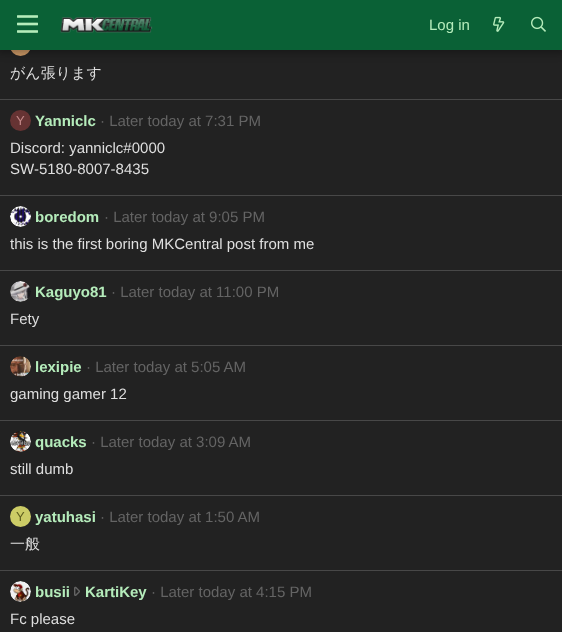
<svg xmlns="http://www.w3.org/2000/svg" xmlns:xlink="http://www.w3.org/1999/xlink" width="562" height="632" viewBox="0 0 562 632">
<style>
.cls-1{font:15px Liberation Sans;fill:#b5ecbb}
.cls-2{font:500 15px WenQuanYi Zen Hei;fill:#dfdfdf}
.cls-3{font:13px Liberation Sans;fill:#c38888}
.cls-4{font:bold 15px Liberation Sans;fill:#b5ecbb}
.cls-5{font:15px Liberation Sans;fill:#646464}
.cls-6{font:15px Liberation Sans;fill:#dfdfdf}
.cls-7{font:13px Liberation Sans;fill:#606020}
</style>
<rect width="100%" height="100%" fill="#222222"/>
<circle fill="#cc9966" cx="20.5" cy="45.5" r="10.5"/>
<rect fill="#000000" fill-opacity="0.3" filter="blur(4px)" x="-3" y="-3" width="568" height="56"/>
<rect fill="#0a6136" x="0" y="0" width="562" height="50"/>
<image xlink:href="image0.png" x="17" y="15" width="21" height="18"/>
<image xlink:href="image1.png" x="60" y="17" width="93" height="16"/>
<image xlink:href="image2.png" x="493" y="16" width="12" height="16"/>
<image xlink:href="image3.png" x="531" y="16" width="15" height="16"/>
<rect fill="#484848" x="0" y="99" width="562" height="1"/>
<circle fill="#663333" cx="20.5" cy="120.5" r="10.5"/>
<rect fill="#484848" x="0" y="195" width="562" height="1"/>
<image xlink:href="image4.png" x="10" y="206" width="21" height="21"/>
<rect fill="#484848" x="0" y="270" width="562" height="1"/>
<image xlink:href="image5.png" x="10" y="281" width="21" height="21"/>
<rect fill="#484848" x="0" y="345" width="562" height="1"/>
<image xlink:href="image6.png" x="10" y="356" width="21" height="21"/>
<rect fill="#484848" x="0" y="420" width="562" height="1"/>
<image xlink:href="image7.png" x="10" y="431" width="21" height="21"/>
<rect fill="#484848" x="0" y="495" width="562" height="1"/>
<circle fill="#cccc66" cx="20.5" cy="516.5" r="10.5"/>
<rect fill="#484848" x="0" y="570" width="562" height="1"/>
<image xlink:href="image8.png" x="10" y="581" width="21" height="21"/>
<image xlink:href="image9.png" x="74" y="586" width="6" height="10"/>
<text class="cls-1" x="429" y="30">Log in</text>
<text class="cls-2" x="10" y="78">がん張ります</text>
<text class="cls-3" x="16" y="125">Y</text>
<text class="cls-4" x="35" y="126">Yanniclc</text>
<text class="cls-5" x="100" y="126">· Later today at 7:31 PM</text>
<text class="cls-6"><tspan x="10" y="153">Discord: yanniclc#0000</tspan><tspan x="10" y="174">SW-5180-8007-8435</tspan></text>
<text class="cls-4" x="35" y="222">boredom</text>
<text class="cls-5" x="104" y="222">· Later today at 9:05 PM</text>
<text class="cls-6" x="10" y="249">this is the first boring MKCentral post from me</text>
<text class="cls-4" x="35" y="297">Kaguyo81</text>
<text class="cls-5" x="111" y="297">· Later today at 11:00 PM</text>
<text class="cls-6" x="10" y="324">Fety</text>
<text class="cls-4" x="35" y="372">lexipie</text>
<text class="cls-5" x="86" y="372">· Later today at 5:05 AM</text>
<text class="cls-6" x="10" y="399">gaming gamer 12</text>
<text class="cls-4" x="35" y="447">quacks</text>
<text class="cls-5" x="91" y="447">· Later today at 3:09 AM</text>
<text class="cls-6" x="10" y="474">still dumb</text>
<text class="cls-7" x="16" y="521">Y</text>
<text class="cls-4" x="35" y="522">yatuhasi</text>
<text class="cls-5" x="100" y="522">· Later today at 1:50 AM</text>
<text class="cls-2" x="10" y="549">一般</text>
<text class="cls-4" x="35" y="597">busii</text>
<text class="cls-4" x="85" y="597">KartiKey</text>
<text class="cls-5" x="151" y="597">· Later today at 4:15 PM</text>
<text class="cls-6" x="10" y="624">Fc please</text>
</svg>
